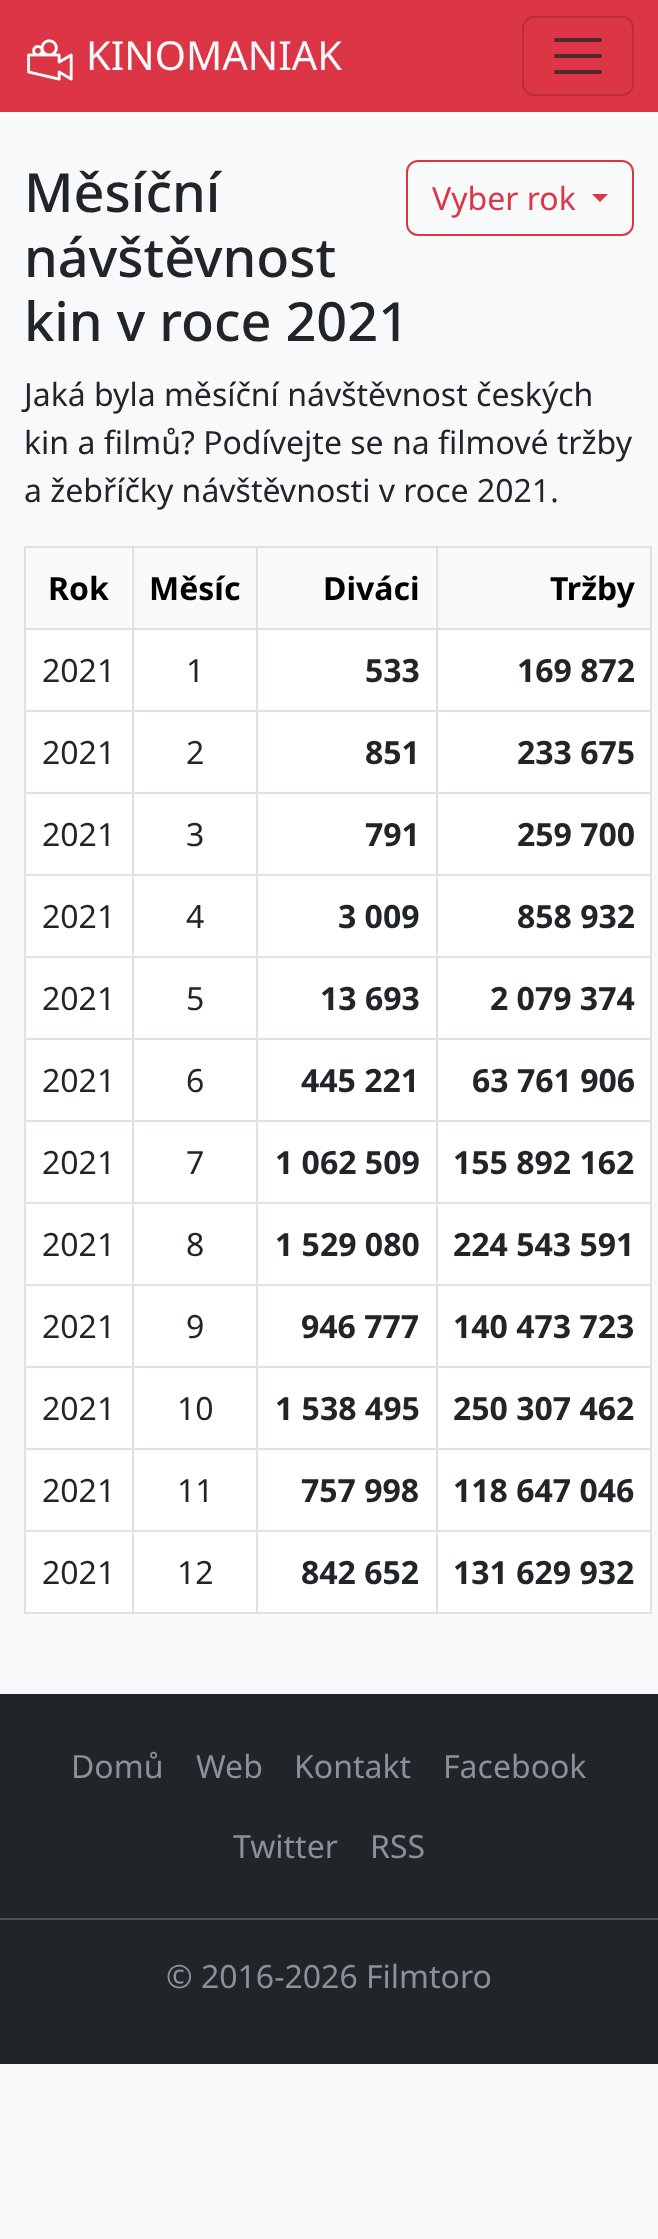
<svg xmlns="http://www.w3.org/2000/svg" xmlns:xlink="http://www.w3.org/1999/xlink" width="658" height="2239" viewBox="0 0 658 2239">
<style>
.cls-1{font:40px Noto Sans;fill:#f8f9fa}
.cls-2{font:500 54px Noto Sans;fill:#212529}
.cls-3{font:32px Noto Sans;fill:#dc3545}
.cls-4{font:32px Noto Sans;fill:#212529}
.cls-5{font:bold 32px Noto Sans;fill:#000000}
.cls-6{font:bold 32px Noto Sans;fill:#212529}
.cls-7{font:32px Noto Sans;fill:#8a9198}
</style>
<rect width="100%" height="100%" fill="#f8f9fa"/>
<rect fill="#dc3545" x="0" y="0" width="658" height="112"/>
<image xlink:href="image0.png" x="27" y="39" width="46" height="42"/>
<rect fill="none" stroke="#bb2d3b" stroke-width="2" x="523" y="17" width="110" height="78" rx="11"/>
<path fill="none" stroke="#502930" stroke-width="4" stroke-linecap="round" d="M556 40H600M556 56H600M556 72H600"/>
<rect fill="none" stroke="#dc3545" stroke-width="2" x="407" y="161" width="226" height="74" rx="11"/>
<path fill="#dc3545" d="M592 194H608L600 202Z"/>
<rect fill="#ffffff" x="26" y="548" width="624" height="1064"/>
<rect fill="#dfe0e1" x="24" y="546" width="628" height="2"/>
<rect fill="#dfe0e1" x="24" y="628" width="628" height="2"/>
<rect fill="#f8f9fa" x="28" y="548" width="102" height="80"/>
<rect fill="#dee2e6" x="24" y="710" width="628" height="2"/>
<rect fill="#dee2e6" x="24" y="792" width="628" height="2"/>
<rect fill="#dee2e6" x="24" y="874" width="628" height="2"/>
<rect fill="#dee2e6" x="24" y="956" width="628" height="2"/>
<rect fill="#dee2e6" x="24" y="1038" width="628" height="2"/>
<rect fill="#dee2e6" x="24" y="1120" width="628" height="2"/>
<rect fill="#dee2e6" x="24" y="1202" width="628" height="2"/>
<rect fill="#dee2e6" x="24" y="1284" width="628" height="2"/>
<rect fill="#dee2e6" x="24" y="1366" width="628" height="2"/>
<rect fill="#dee2e6" x="24" y="1448" width="628" height="2"/>
<rect fill="#dee2e6" x="24" y="1530" width="628" height="2"/>
<rect fill="#dee2e6" x="24" y="1612" width="628" height="2"/>
<rect fill="#dee2e6" x="24" y="628" width="2" height="986"/>
<rect fill="#dfe0e1" x="24" y="546" width="2" height="84"/>
<rect fill="#f8f9fa" x="134" y="548" width="122" height="80"/>
<rect fill="#dee2e6" x="132" y="628" width="2" height="986"/>
<rect fill="#dfe0e1" x="132" y="546" width="2" height="84"/>
<rect fill="#f8f9fa" x="260" y="548" width="174" height="80"/>
<rect fill="#dee2e6" x="256" y="628" width="2" height="986"/>
<rect fill="#dfe0e1" x="256" y="546" width="2" height="84"/>
<rect fill="#f8f9fa" x="438" y="548" width="212" height="80"/>
<rect fill="#dee2e6" x="650" y="628" width="2" height="986"/>
<rect fill="#dfe0e1" x="650" y="546" width="2" height="84"/>
<rect fill="#dee2e6" x="436" y="628" width="2" height="986"/>
<rect fill="#dfe0e1" x="436" y="546" width="2" height="84"/>
<rect fill="#212529" x="0" y="1694" width="658" height="370"/>
<rect fill="#495057" x="0" y="1918" width="658" height="2"/>
<text class="cls-1" x="86" y="70">KINOMANIAK</text>
<text class="cls-2"><tspan x="24" y="212">Měsíční</tspan><tspan x="24" y="277">návštěvnost</tspan><tspan x="24" y="341">kin v roce 2021</tspan></text>
<text class="cls-3" x="432" y="210">Vyber rok</text>
<text class="cls-4"><tspan x="24" y="406">Jaká byla měsíční návštěvnost českých</tspan><tspan x="24" y="454">kin a filmů? Podívejte se na filmové tržby</tspan><tspan x="24" y="502">a žebříčky návštěvnosti v roce 2021.</tspan></text>
<text class="cls-5" x="48" y="600">Rok</text>
<text class="cls-5" x="149" y="600">Měsíc</text>
<text class="cls-5" x="323" y="600">Diváci</text>
<text class="cls-5" x="550" y="600">Tržby</text>
<text class="cls-4" x="42" y="682">2021</text>
<text class="cls-4" x="186" y="682">1</text>
<text class="cls-6" x="365" y="682">533</text>
<text class="cls-6" x="517" y="682">169 872</text>
<text class="cls-4" x="42" y="764">2021</text>
<text class="cls-4" x="186" y="764">2</text>
<text class="cls-6" x="365" y="764">851</text>
<text class="cls-6" x="517" y="764">233 675</text>
<text class="cls-4" x="42" y="846">2021</text>
<text class="cls-4" x="186" y="846">3</text>
<text class="cls-6" x="365" y="846">791</text>
<text class="cls-6" x="517" y="846">259 700</text>
<text class="cls-4" x="42" y="928">2021</text>
<text class="cls-4" x="186" y="928">4</text>
<text class="cls-6" x="338" y="928">3 009</text>
<text class="cls-6" x="517" y="928">858 932</text>
<text class="cls-4" x="42" y="1010">2021</text>
<text class="cls-4" x="186" y="1010">5</text>
<text class="cls-6" x="320" y="1010">13 693</text>
<text class="cls-6" x="490" y="1010">2 079 374</text>
<text class="cls-4" x="42" y="1092">2021</text>
<text class="cls-4" x="186" y="1092">6</text>
<text class="cls-6" x="301" y="1092">445 221</text>
<text class="cls-6" x="472" y="1092">63 761 906</text>
<text class="cls-4" x="42" y="1174">2021</text>
<text class="cls-4" x="186" y="1174">7</text>
<text class="cls-6" x="275" y="1174">1 062 509</text>
<text class="cls-6" x="453" y="1174">155 892 162</text>
<text class="cls-4" x="42" y="1256">2021</text>
<text class="cls-4" x="186" y="1256">8</text>
<text class="cls-6" x="275" y="1256">1 529 080</text>
<text class="cls-6" x="453" y="1256">224 543 591</text>
<text class="cls-4" x="42" y="1338">2021</text>
<text class="cls-4" x="186" y="1338">9</text>
<text class="cls-6" x="301" y="1338">946 777</text>
<text class="cls-6" x="453" y="1338">140 473 723</text>
<text class="cls-4" x="42" y="1420">2021</text>
<text class="cls-4" x="177" y="1420">10</text>
<text class="cls-6" x="275" y="1420">1 538 495</text>
<text class="cls-6" x="453" y="1420">250 307 462</text>
<text class="cls-4" x="42" y="1502">2021</text>
<text class="cls-4" x="177" y="1502">11</text>
<text class="cls-6" x="301" y="1502">757 998</text>
<text class="cls-6" x="453" y="1502">118 647 046</text>
<text class="cls-4" x="42" y="1584">2021</text>
<text class="cls-4" x="177" y="1584">12</text>
<text class="cls-6" x="301" y="1584">842 652</text>
<text class="cls-6" x="453" y="1584">131 629 932</text>
<text class="cls-7" x="71" y="1778">Domů</text>
<text class="cls-7" x="196" y="1778">Web</text>
<text class="cls-7" x="294" y="1778">Kontakt</text>
<text class="cls-7" x="443" y="1778">Facebook</text>
<text class="cls-7" x="233" y="1858">Twitter</text>
<text class="cls-7" x="370" y="1858">RSS</text>
<text class="cls-7" x="166" y="1988">© 2016-2026 Filmtoro</text>
</svg>
